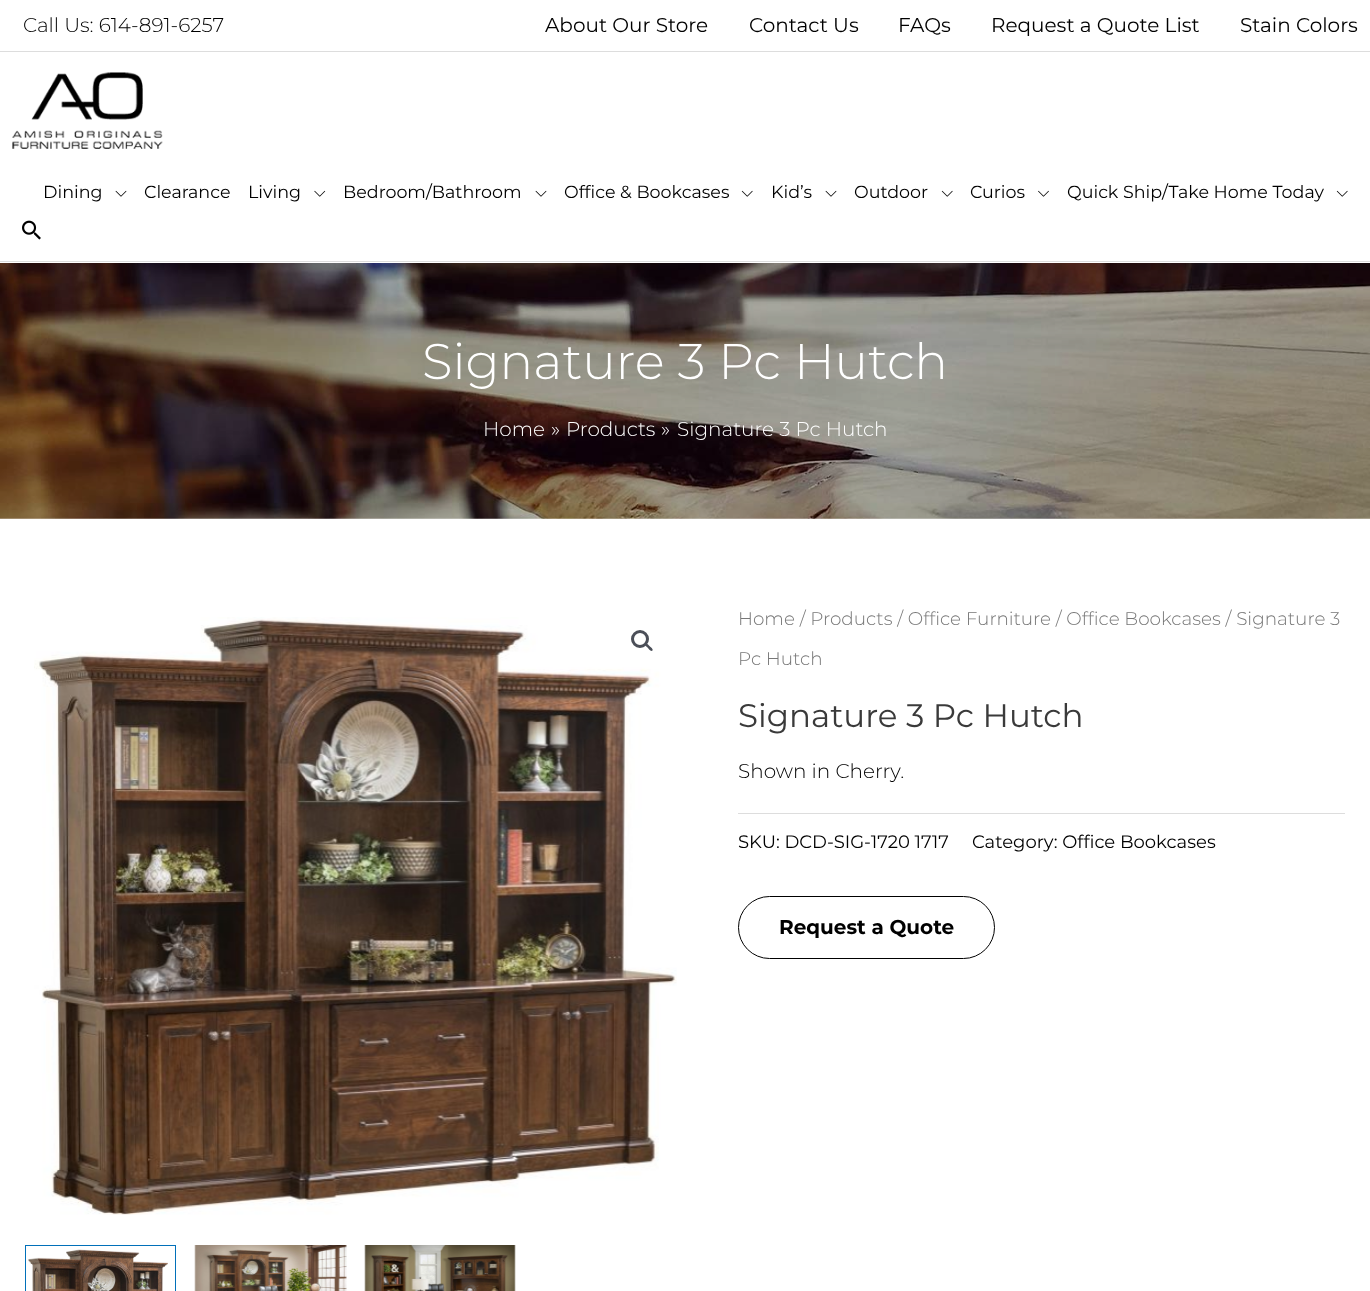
<svg xmlns="http://www.w3.org/2000/svg" xmlns:xlink="http://www.w3.org/1999/xlink" width="1370" height="1291" viewBox="0 0 1370 1291">
<style>
.cls-1{font:300 20px Montserrat;fill:#000000}
.cls-2{font:20px Montserrat;fill:#000000}
.cls-3{font:17.5px Montserrat;fill:#000000}
.cls-4{font:300 50px Montserrat;fill:#ffffff}
.cls-5{font:300 20px Montserrat;fill:#ffffff}
.cls-6{font:300 18.4px Montserrat;fill:#777777}
.cls-7{font:32.5px Montserrat;fill:#3a3a3a}
.cls-8{font:18px Montserrat;fill:#000000}
.cls-9{font:bold 20px Montserrat;fill:#000000}
</style>
<rect width="100%" height="100%" fill="#ffffff"/>
<rect fill="#dddddd" x="0" y="51" width="1370" height="1"/>
<rect fill="#dddddd" x="0" y="261" width="1370" height="1"/>
<image xlink:href="image0.png" x="12" y="72" width="151" height="77"/>
<image xlink:href="image1.png" x="115" y="190" width="12" height="7"/>
<image xlink:href="image2.png" x="314" y="190" width="12" height="7"/>
<image xlink:href="image1.png" x="535" y="190" width="12" height="7"/>
<image xlink:href="image3.png" x="741" y="190" width="12" height="7"/>
<image xlink:href="image1.png" x="825" y="190" width="12" height="7"/>
<image xlink:href="image3.png" x="941" y="190" width="12" height="7"/>
<image xlink:href="image4.png" x="1038" y="190" width="11" height="7"/>
<image xlink:href="image3.png" x="1336" y="190" width="12" height="7"/>
<image xlink:href="image5.png" x="22" y="220" width="19" height="20"/>
<image xlink:href="image6.png" x="0" y="263" width="1370" height="256"/>
<image xlink:href="image7.png" x="34" y="617" width="643" height="598"/>
<circle fill="none" stroke="#4b4f58" stroke-width="3" cx="640" cy="639" r="7.5"/>
<path fill="#4b4f58" d="M645 643.5C646.5 642 649 645.5 649.5 646C650.5 647 653.5 649 652.5 650.5C651 652 648.5 649 648 648C647 647 644 645 645 643.5Z"/>
<image xlink:href="image8.png" x="28" y="1249" width="140" height="42"/>
<rect fill="none" stroke="#0170b9" x="25.5" y="1245.5" width="150" height="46"/>
<image xlink:href="image9.png" x="194" y="1245" width="153" height="46"/>
<image xlink:href="image10.png" x="364" y="1245" width="152" height="46"/>
<rect fill="#dddddd" x="738" y="813" width="607" height="1"/>
<rect fill="none" stroke="#000000" x="738.5" y="896.5" width="256" height="62" rx="31"/>
<text class="cls-1" x="23" y="32">Call Us: 614-891-6257</text>
<text class="cls-2" x="545" y="32">About Our Store</text>
<text class="cls-2" x="749" y="32">Contact Us</text>
<text class="cls-2" x="898" y="32">FAQs</text>
<text class="cls-2" x="991" y="32">Request a Quote List</text>
<text class="cls-2" x="1240" y="32">Stain Colors</text>
<text class="cls-3" x="43" y="198">Dining</text>
<text class="cls-3" x="144" y="198">Clearance</text>
<text class="cls-3" x="248" y="198">Living</text>
<text class="cls-3" x="343" y="198">Bedroom/Bathroom</text>
<text class="cls-3" x="564" y="198">Office &amp; Bookcases</text>
<text class="cls-3" x="771" y="198">Kid’s</text>
<text class="cls-3" x="854" y="198">Outdoor</text>
<text class="cls-3" x="970" y="198">Curios</text>
<text class="cls-3" x="1067" y="198">Quick Ship/Take Home Today</text>
<text class="cls-4" x="422" y="379">Signature 3 Pc Hutch</text>
<text class="cls-5" x="483" y="436">Home</text>
<text class="cls-5" x="551" y="436">»</text>
<text class="cls-5" x="566" y="436">Products</text>
<text class="cls-5" x="661" y="436">»</text>
<text class="cls-5" x="677" y="436">Signature 3 Pc Hutch</text>
<text class="cls-6" x="738" y="625">Home / Products / Office Furniture / Office Bookcases / Signature 3</text>
<text class="cls-6" x="738" y="665">Pc Hutch</text>
<text class="cls-7" x="738" y="727">Signature 3 Pc Hutch</text>
<text class="cls-1" x="738" y="778">Shown in Cherry.</text>
<text class="cls-8" x="738" y="848">SKU: DCD-SIG-1720 1717</text>
<text class="cls-8" x="972" y="848">Category: Office Bookcases</text>
<text class="cls-9" x="779" y="934">Request a Quote</text>
</svg>
